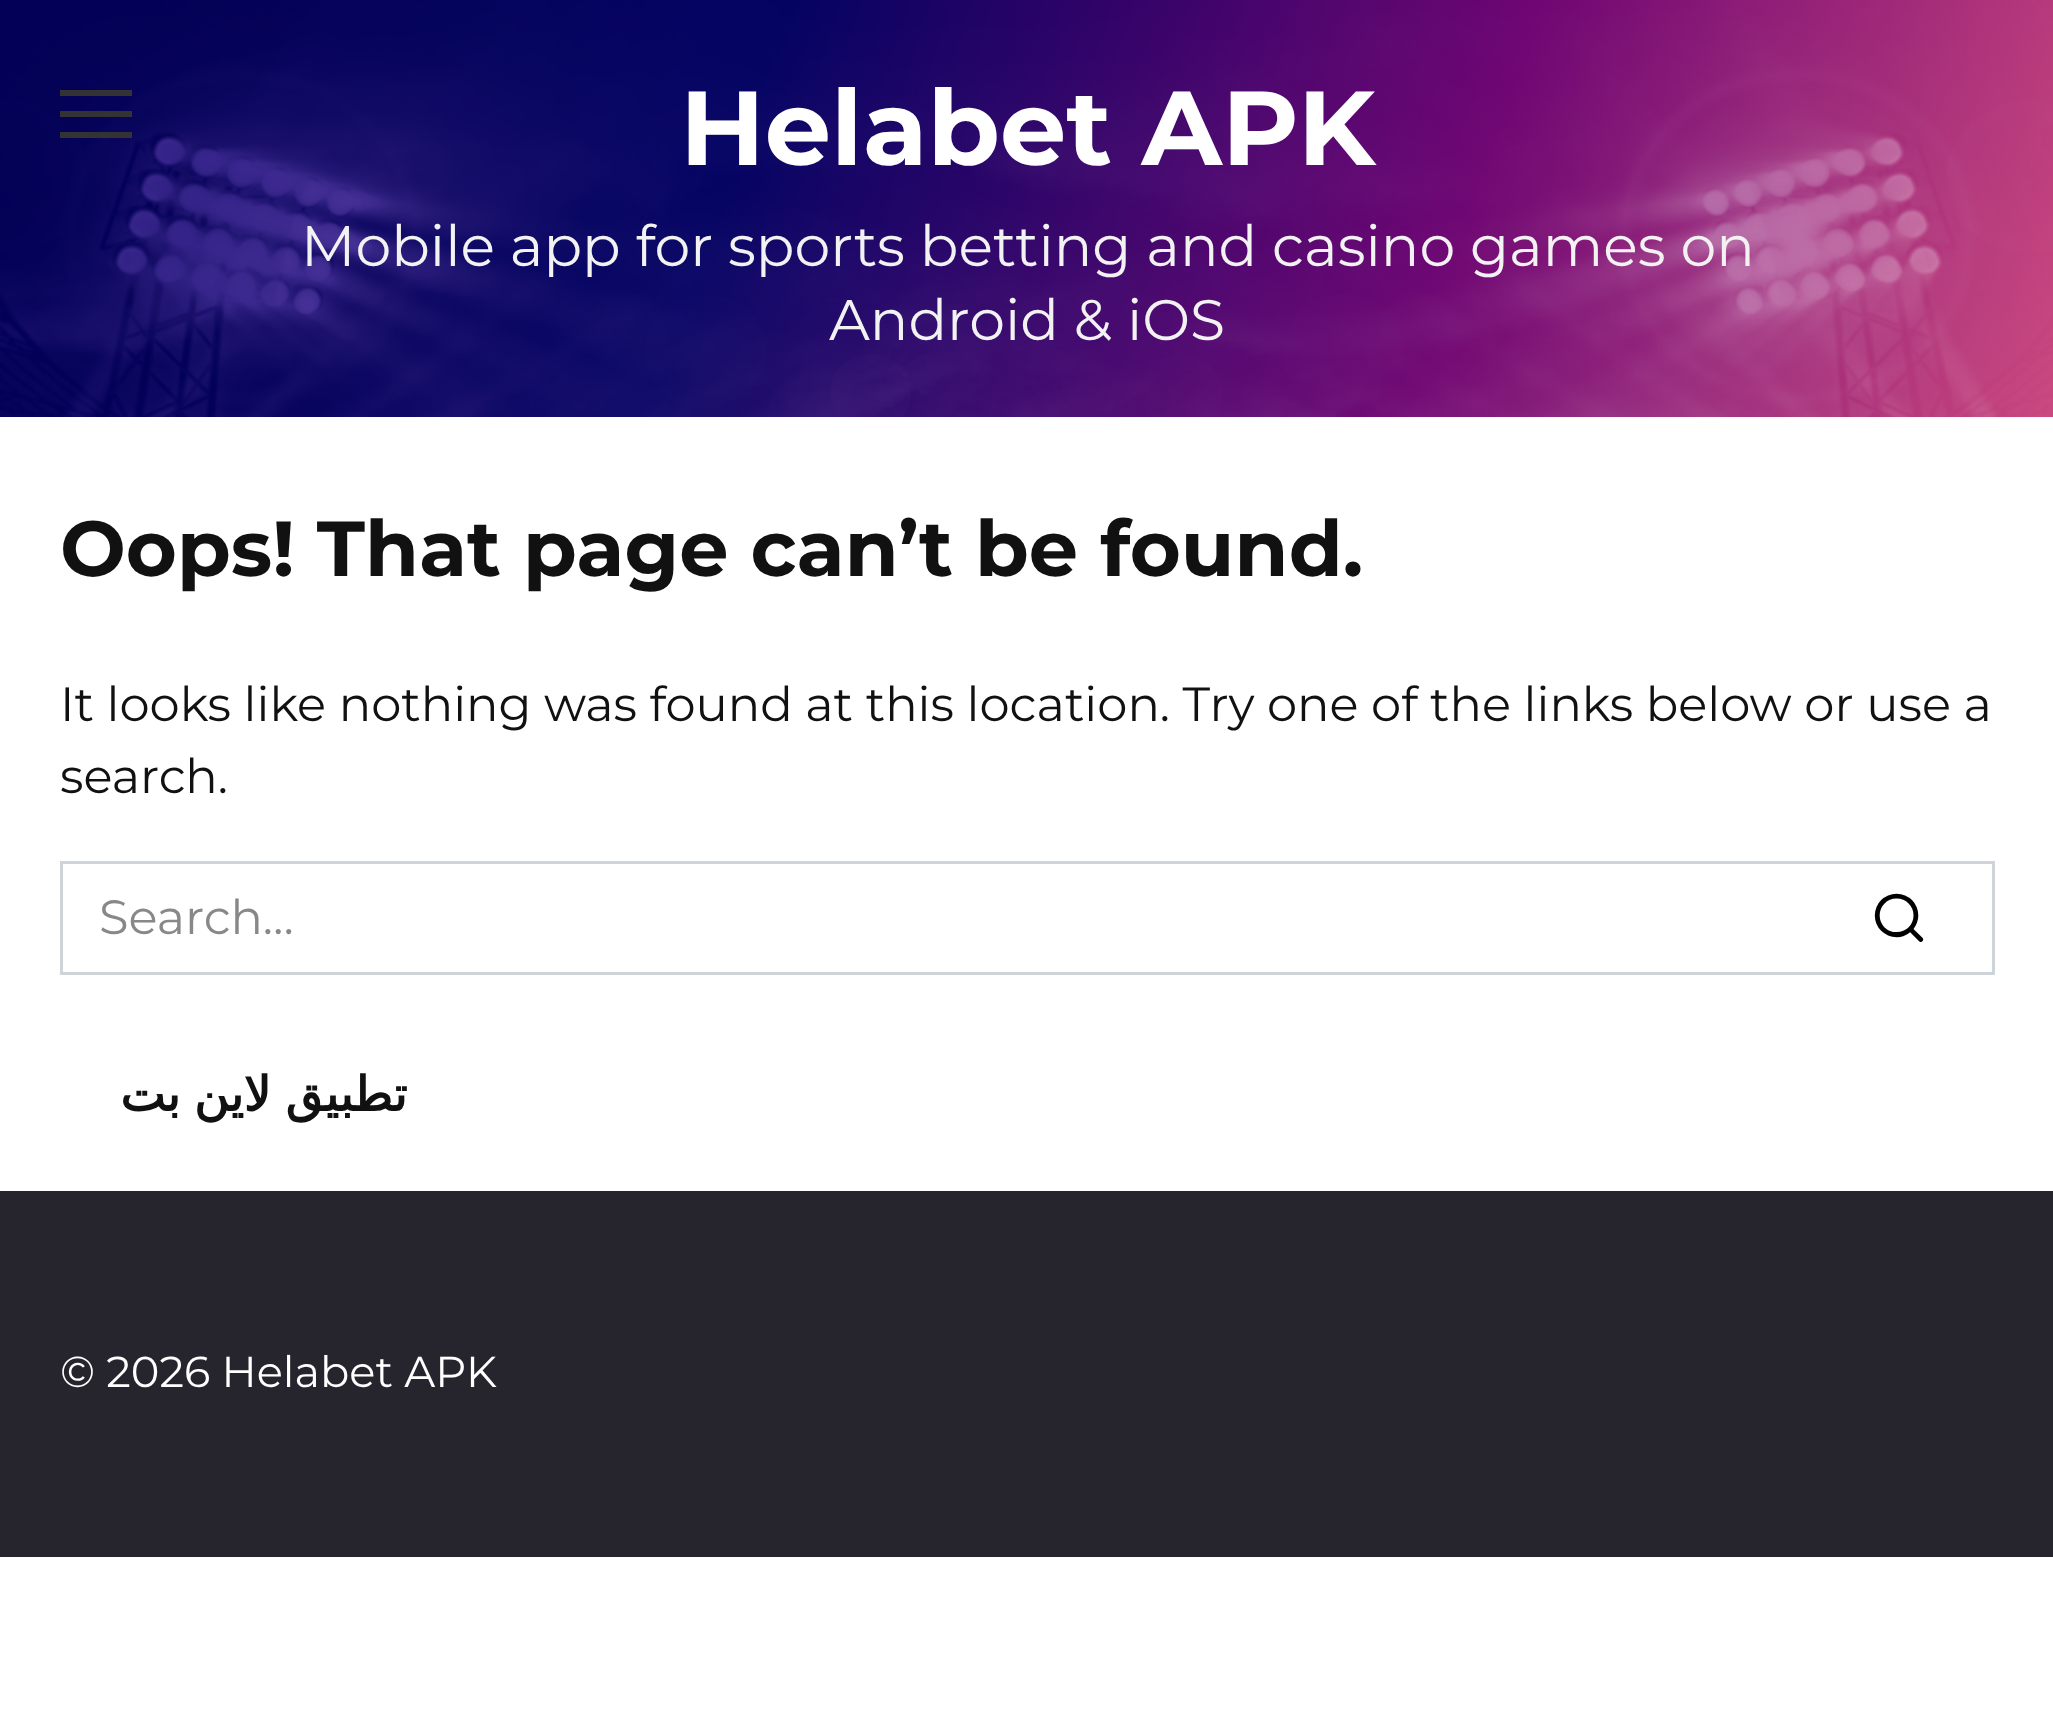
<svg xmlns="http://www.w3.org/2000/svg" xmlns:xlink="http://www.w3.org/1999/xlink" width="2053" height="1730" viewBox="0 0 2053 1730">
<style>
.cls-1{font:bold 105px Montserrat;fill:#ffffff}
.cls-2{font:57px Montserrat;fill:#f2f2f2}
.cls-3{font:bold 78px Montserrat;fill:#111111}
.cls-4{font:48px Montserrat;fill:#111111}
.cls-5{font:48px Montserrat;fill:#888888}
.cls-6{font:58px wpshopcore;fill:#000000}
.cls-7{font:bold 48px DejaVu Sans;direction:rtl;fill:#111111}
.cls-8{font:43.25px Montserrat;fill:#ffffff}
</style>
<rect width="100%" height="100%" fill="#ffffff"/>
<image xlink:href="image0.png" x="0" y="0" width="2053" height="417"/>
<rect fill="#333333" x="60" y="90" width="72" height="6"/>
<rect fill="#333333" x="60" y="111" width="72" height="6"/>
<rect fill="#333333" x="60" y="132" width="72" height="6"/>
<rect fill="none" stroke="#ced4da" stroke-width="3" x="61.5" y="862.5" width="1932" height="111"/>
<rect fill="#26252d" x="0" y="1191" width="2053" height="366"/>
<text class="cls-1" x="680" y="165">Helabet APK</text>
<text class="cls-2" x="301" y="266">Mobile app for sports betting and casino games on</text>
<text class="cls-2" x="829" y="340">Android &amp; iOS</text>
<text class="cls-3" x="60" y="576">Oops! That page can’t be found.</text>
<text class="cls-4"><tspan x="60" y="721">It looks like nothing was found at this location. Try one of the links below or use a</tspan><tspan x="60" y="793">search.</tspan></text>
<text class="cls-5" x="99" y="934">Search…</text>
<text class="cls-6" x="1870" y="942">🔍</text>
<text class="cls-7" x="271" y="1111" word-spacing="-2">لاين بت</text>
<text class="cls-7" x="407" y="1111">تطبيق</text>
<text class="cls-8" x="60" y="1387">© 2026 Helabet APK</text>
</svg>
